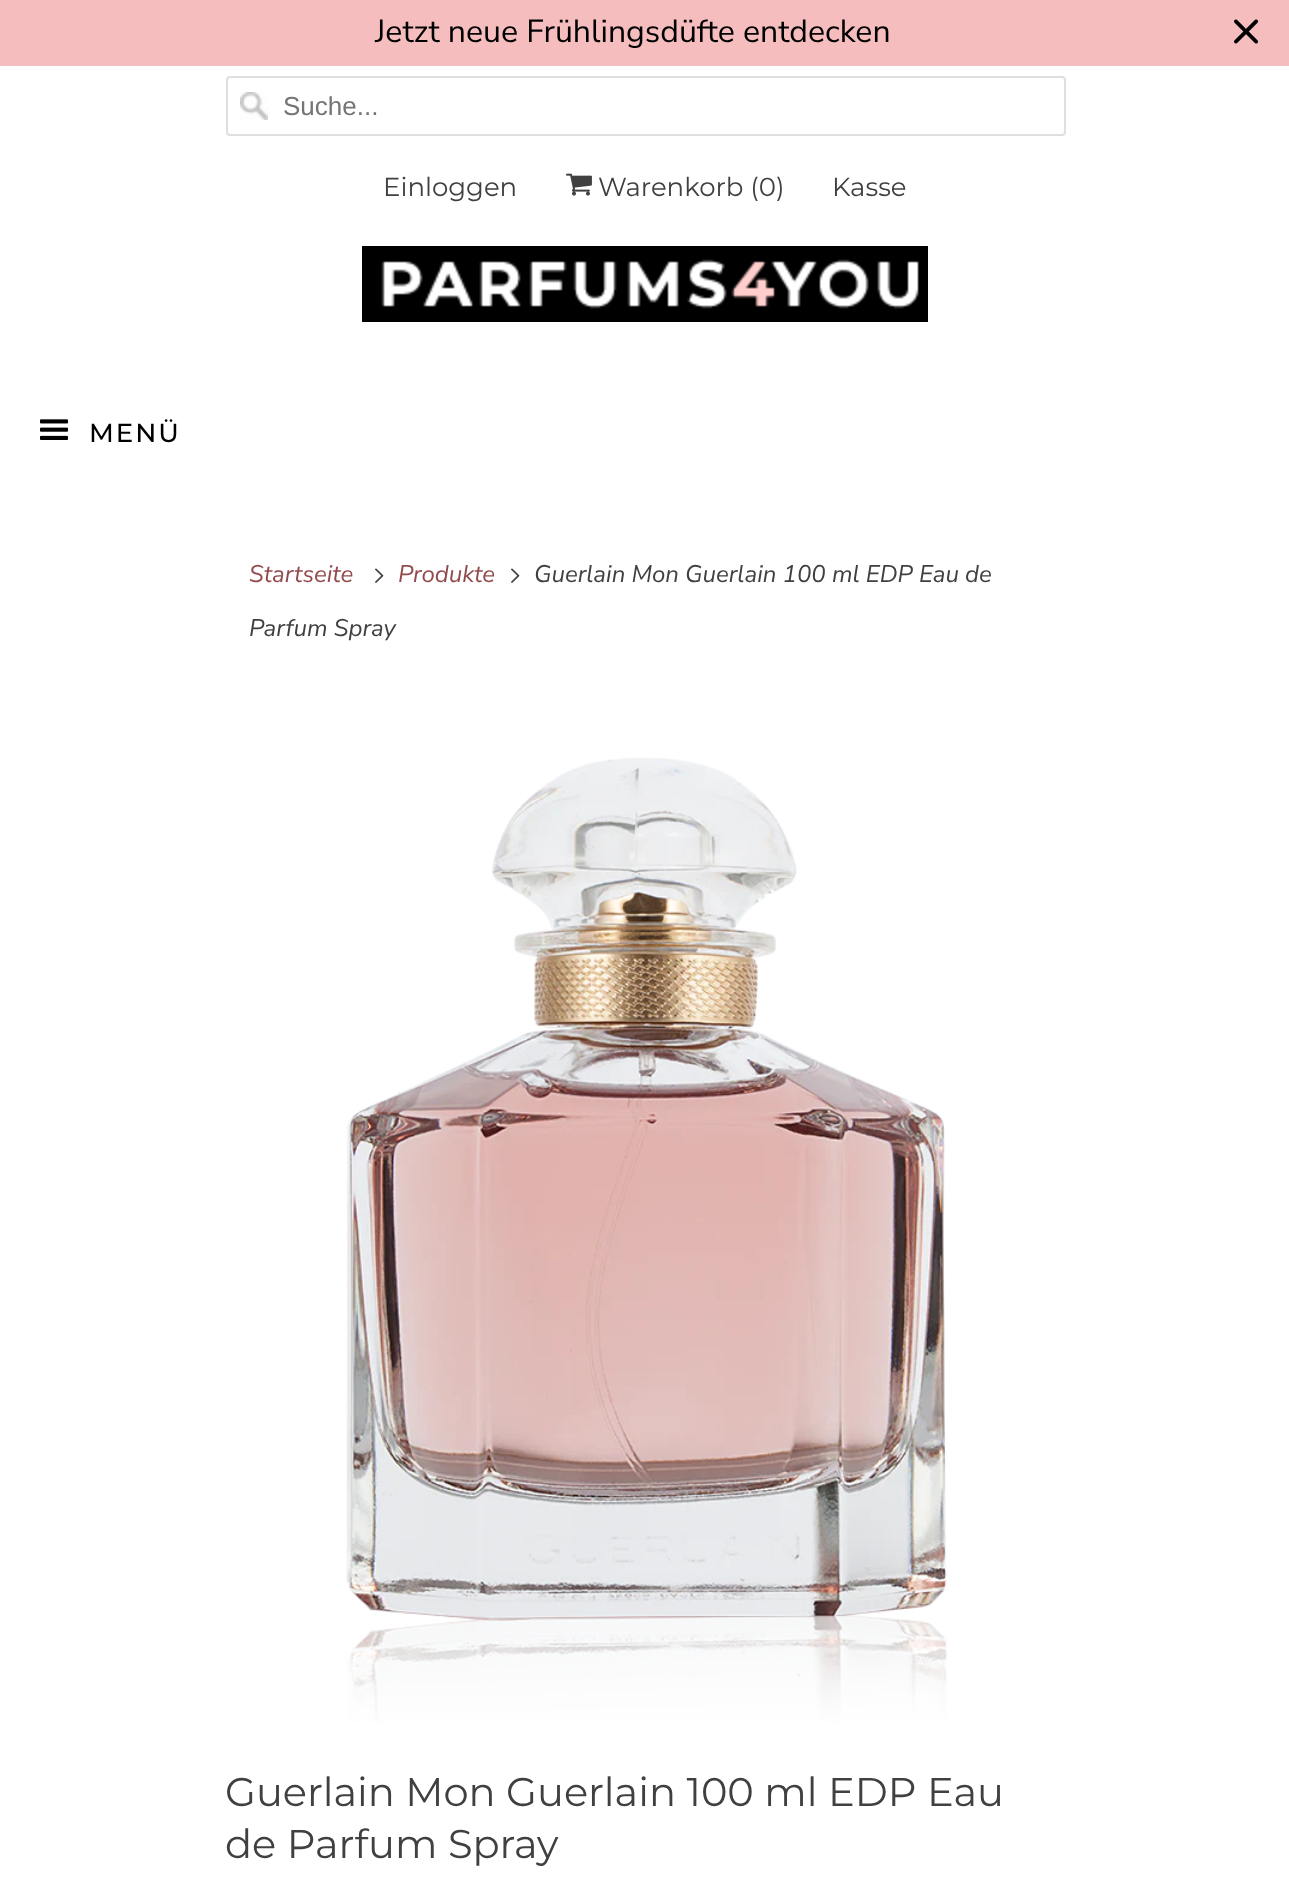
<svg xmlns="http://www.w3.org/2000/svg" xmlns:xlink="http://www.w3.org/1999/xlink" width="1289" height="1885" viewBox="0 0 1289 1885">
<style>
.cls-1{font:32px Nunito Sans;fill:#000000}
.cls-2{font:26px Liberation Sans;fill:#757575}
.cls-3{font:26px Montserrat;fill:#404040}
.cls-4{font:500 26px Montserrat;letter-spacing:2px;fill:#000000}
.cls-5{font:italic 24px Nunito Sans;fill:#924a4d}
.cls-6{font:italic 24px Nunito Sans;fill:#404040}
.cls-7{font:40px Montserrat;fill:#404040}
</style>
<rect width="100%" height="100%" fill="#ffffff"/>
<rect fill="#f5bdbd" x="0" y="0" width="1289" height="66"/>
<image xlink:href="image0.png" x="1234" y="19" width="25" height="25"/>
<image xlink:href="image1.png" x="240" y="92" width="28" height="28"/>
<rect fill="none" stroke="#dfdfdf" stroke-width="2" x="227" y="77" width="838" height="58" rx="3"/>
<image xlink:href="image2.png" x="566" y="173" width="26" height="23"/>
<image xlink:href="image3.png" x="362" y="246" width="566" height="76"/>
<image xlink:href="image4.png" x="40" y="419" width="28" height="21"/>
<image xlink:href="image5.png" x="375" y="568" width="9" height="15"/>
<image xlink:href="image5.png" x="511" y="568" width="9" height="15"/>
<image xlink:href="image6.png" x="346" y="757" width="601" height="965"/>
<text class="cls-1" x="375" y="42">Jetzt neue Frühlingsdüfte entdecken</text>
<text class="cls-2" x="283" y="115">Suche...</text>
<text class="cls-3" x="383" y="196">Einloggen</text>
<text class="cls-3" x="598" y="196">Warenkorb (0)</text>
<text class="cls-3" x="832" y="196">Kasse</text>
<text class="cls-4" x="89" y="442">MENÜ</text>
<text class="cls-5" x="249" y="582">Startseite</text>
<text class="cls-5" x="398" y="582">Produkte</text>
<text class="cls-6" x="534" y="582">Guerlain Mon Guerlain 100 ml EDP Eau de</text>
<text class="cls-6" x="249" y="636">Parfum Spray</text>
<text class="cls-7"><tspan x="225" y="1806">Guerlain Mon Guerlain 100 ml EDP Eau</tspan><tspan x="225" y="1858">de Parfum Spray</tspan></text>
</svg>
